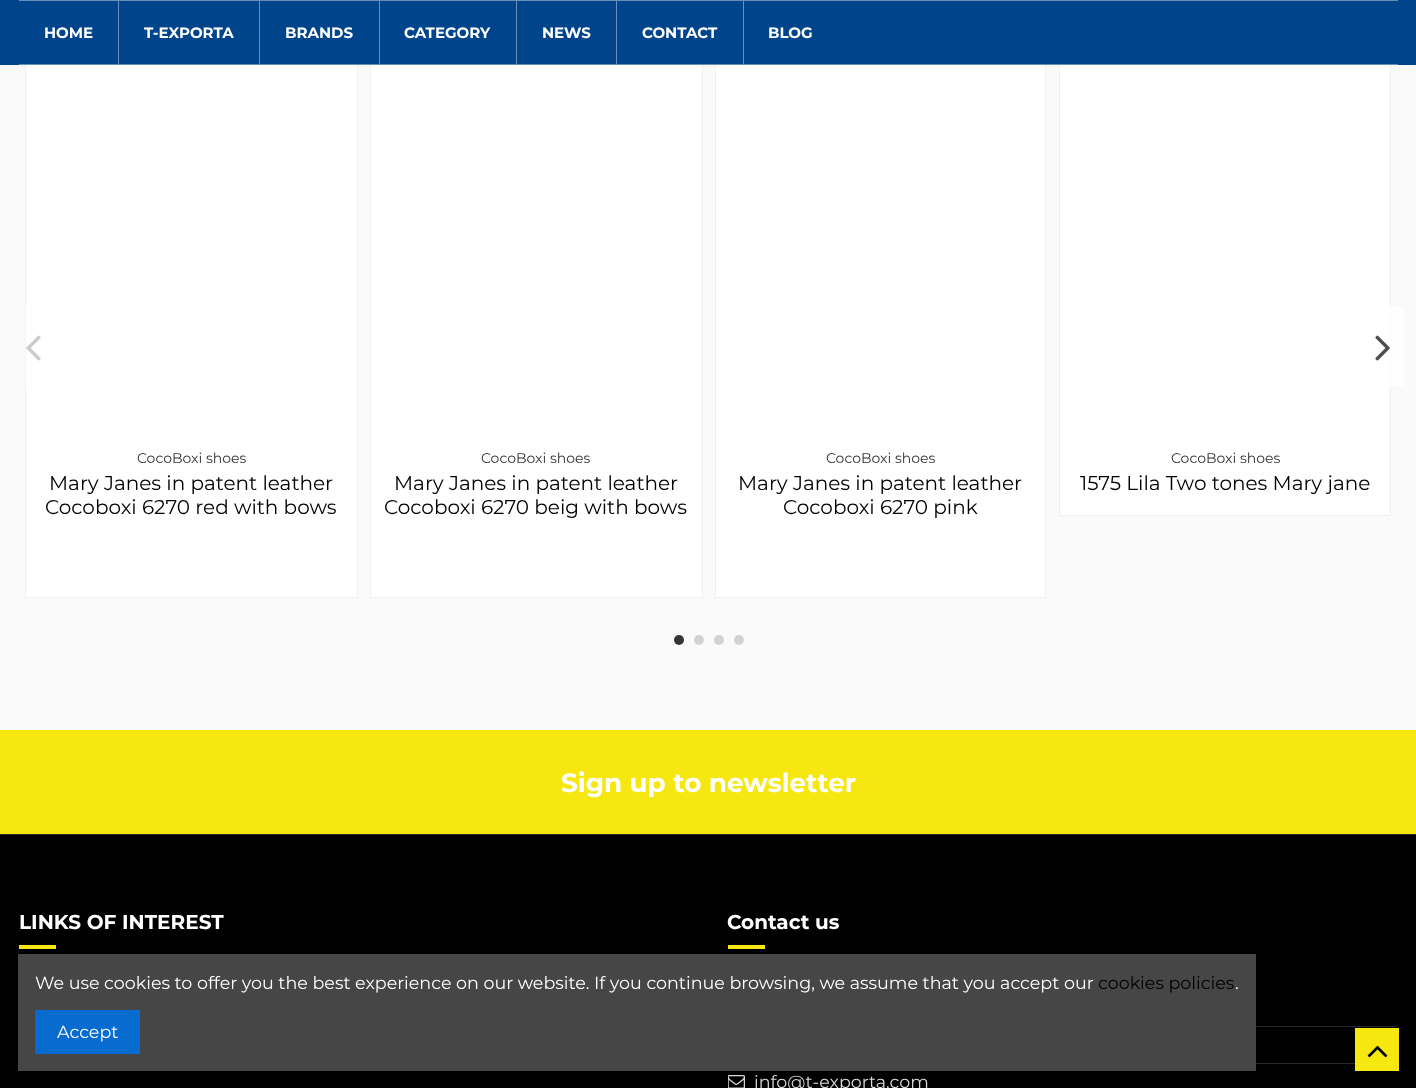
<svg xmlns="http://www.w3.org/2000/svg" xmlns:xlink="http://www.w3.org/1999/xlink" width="1416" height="1088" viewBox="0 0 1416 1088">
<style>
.cls-1{font:bold 15px Montserrat;fill:#ffffff}
.cls-2{font:14px Montserrat;fill:#333333}
.cls-3{font:20px Montserrat;fill:#000000}
.cls-4{font:bold 26.25px Montserrat;fill:#ffffff}
.cls-5{font:bold 20px Montserrat;fill:#ffffff}
.cls-6{font:17.5px Montserrat;fill:#d9d9d9}
.cls-7{font:17.5px Montserrat;fill:#ffffff}
.cls-8{font:17.5px Montserrat;fill:#000000}
</style>
<rect width="100%" height="100%" fill="#fafafa"/>
<rect fill="#ffffff" x="26" y="65" width="331" height="532"/>
<rect fill="none" stroke="#f0f0f0" x="25.5" y="41.5" width="332" height="556"/>
<rect fill="#ffffff" x="371" y="65" width="331" height="532"/>
<rect fill="none" stroke="#f0f0f0" x="370.5" y="41.5" width="332" height="556"/>
<rect fill="#ffffff" x="716" y="65" width="329" height="532"/>
<rect fill="none" stroke="#f0f0f0" x="715.5" y="41.5" width="330" height="556"/>
<rect fill="#ffffff" x="1060" y="65" width="330" height="450"/>
<rect fill="none" stroke="#f0f0f0" x="1059.5" y="41.5" width="331" height="474"/>
<rect fill="#00458b" x="0" y="0" width="1416" height="65"/>
<rect fill="#668fb9" x="19" y="0" width="1379" height="1"/>
<rect fill="#668fb9" x="19" y="64" width="1379" height="1"/>
<rect fill="#668fb9" x="118" y="1" width="1" height="63"/>
<rect fill="#668fb9" x="259" y="1" width="1" height="63"/>
<rect fill="#668fb9" x="379" y="1" width="1" height="63"/>
<rect fill="#668fb9" x="516" y="1" width="1" height="63"/>
<rect fill="#668fb9" x="616" y="1" width="1" height="63"/>
<rect fill="#668fb9" x="743" y="1" width="1" height="63"/>
<rect fill="#ffffff" fill-opacity="0.2" x="25" y="306" width="1" height="80"/>
<image xlink:href="image0.png" x="26" y="335" width="15" height="26"/>
<rect fill="#ffffff" fill-opacity="0.7" x="1390" y="306" width="14" height="80"/>
<image xlink:href="image1.png" x="1375" y="335" width="15" height="26"/>
<circle fill="#333333" cx="679" cy="640" r="5"/>
<circle fill="#d2d2d2" cx="699" cy="640" r="5"/>
<circle fill="#d2d2d2" cx="719" cy="640" r="5"/>
<circle fill="#d2d2d2" cx="739" cy="640" r="5"/>
<rect fill="#000000" x="0" y="835" width="1416" height="253"/>
<rect fill="#f5e70f" x="0" y="730" width="1416" height="104"/>
<rect fill="#282828" x="0" y="834" width="1416" height="1"/>
<rect fill="#f5e70f" x="19" y="945" width="37" height="4"/>
<rect fill="#f5e70f" x="728" y="945" width="37" height="4"/>
<rect fill="#282828" x="1256" y="1026" width="142" height="1"/>
<rect fill="#282828" x="1256" y="1063" width="99" height="1"/>
<image xlink:href="image2.png" x="728" y="1075" width="17" height="13"/>
<rect fill="#464646" x="18" y="954" width="1238" height="117"/>
<rect fill="#086bd0" x="35" y="1010" width="105" height="44"/>
<rect fill="#f5e70f" x="1355" y="1028" width="44" height="43"/>
<image xlink:href="image3.png" x="1367" y="1045" width="21" height="13"/>
<text class="cls-1" x="44" y="38">HOME</text>
<text class="cls-1" x="144" y="38">T-EXPORTA</text>
<text class="cls-1" x="285" y="38">BRANDS</text>
<text class="cls-1" x="404" y="38">CATEGORY</text>
<text class="cls-1" x="542" y="38">NEWS</text>
<text class="cls-1" x="642" y="38">CONTACT</text>
<text class="cls-1" x="768" y="38">BLOG</text>
<text class="cls-2" x="137" y="463">CocoBoxi shoes</text>
<text class="cls-3" x="49" y="490">Mary Janes in patent leather</text>
<text class="cls-3" x="45" y="514">Cocoboxi 6270 red with bows</text>
<text class="cls-2" x="481" y="463">CocoBoxi shoes</text>
<text class="cls-3" x="394" y="490">Mary Janes in patent leather</text>
<text class="cls-3" x="384" y="514">Cocoboxi 6270 beig with bows</text>
<text class="cls-2" x="826" y="463">CocoBoxi shoes</text>
<text class="cls-3" x="738" y="490">Mary Janes in patent leather</text>
<text class="cls-3" x="783" y="514">Cocoboxi 6270 pink</text>
<text class="cls-2" x="1171" y="463">CocoBoxi shoes</text>
<text class="cls-3" x="1080" y="490">1575 Lila Two tones Mary jane</text>
<text class="cls-4" x="561" y="792">Sign up to newsletter</text>
<text class="cls-5" x="19" y="929">LINKS OF INTEREST</text>
<text class="cls-5" x="727" y="929">Contact us</text>
<text class="cls-6" x="754" y="1088">info@t-exporta.com</text>
<text class="cls-7" x="35" y="989">We use cookies to offer you the best experience on our website. If you continue browsing, we assume that you accept our</text>
<text class="cls-8" x="1098" y="989">cookies policies</text>
<text class="cls-7" x="1235" y="989">.</text>
<text class="cls-7" x="57" y="1038">Accept</text>
</svg>
